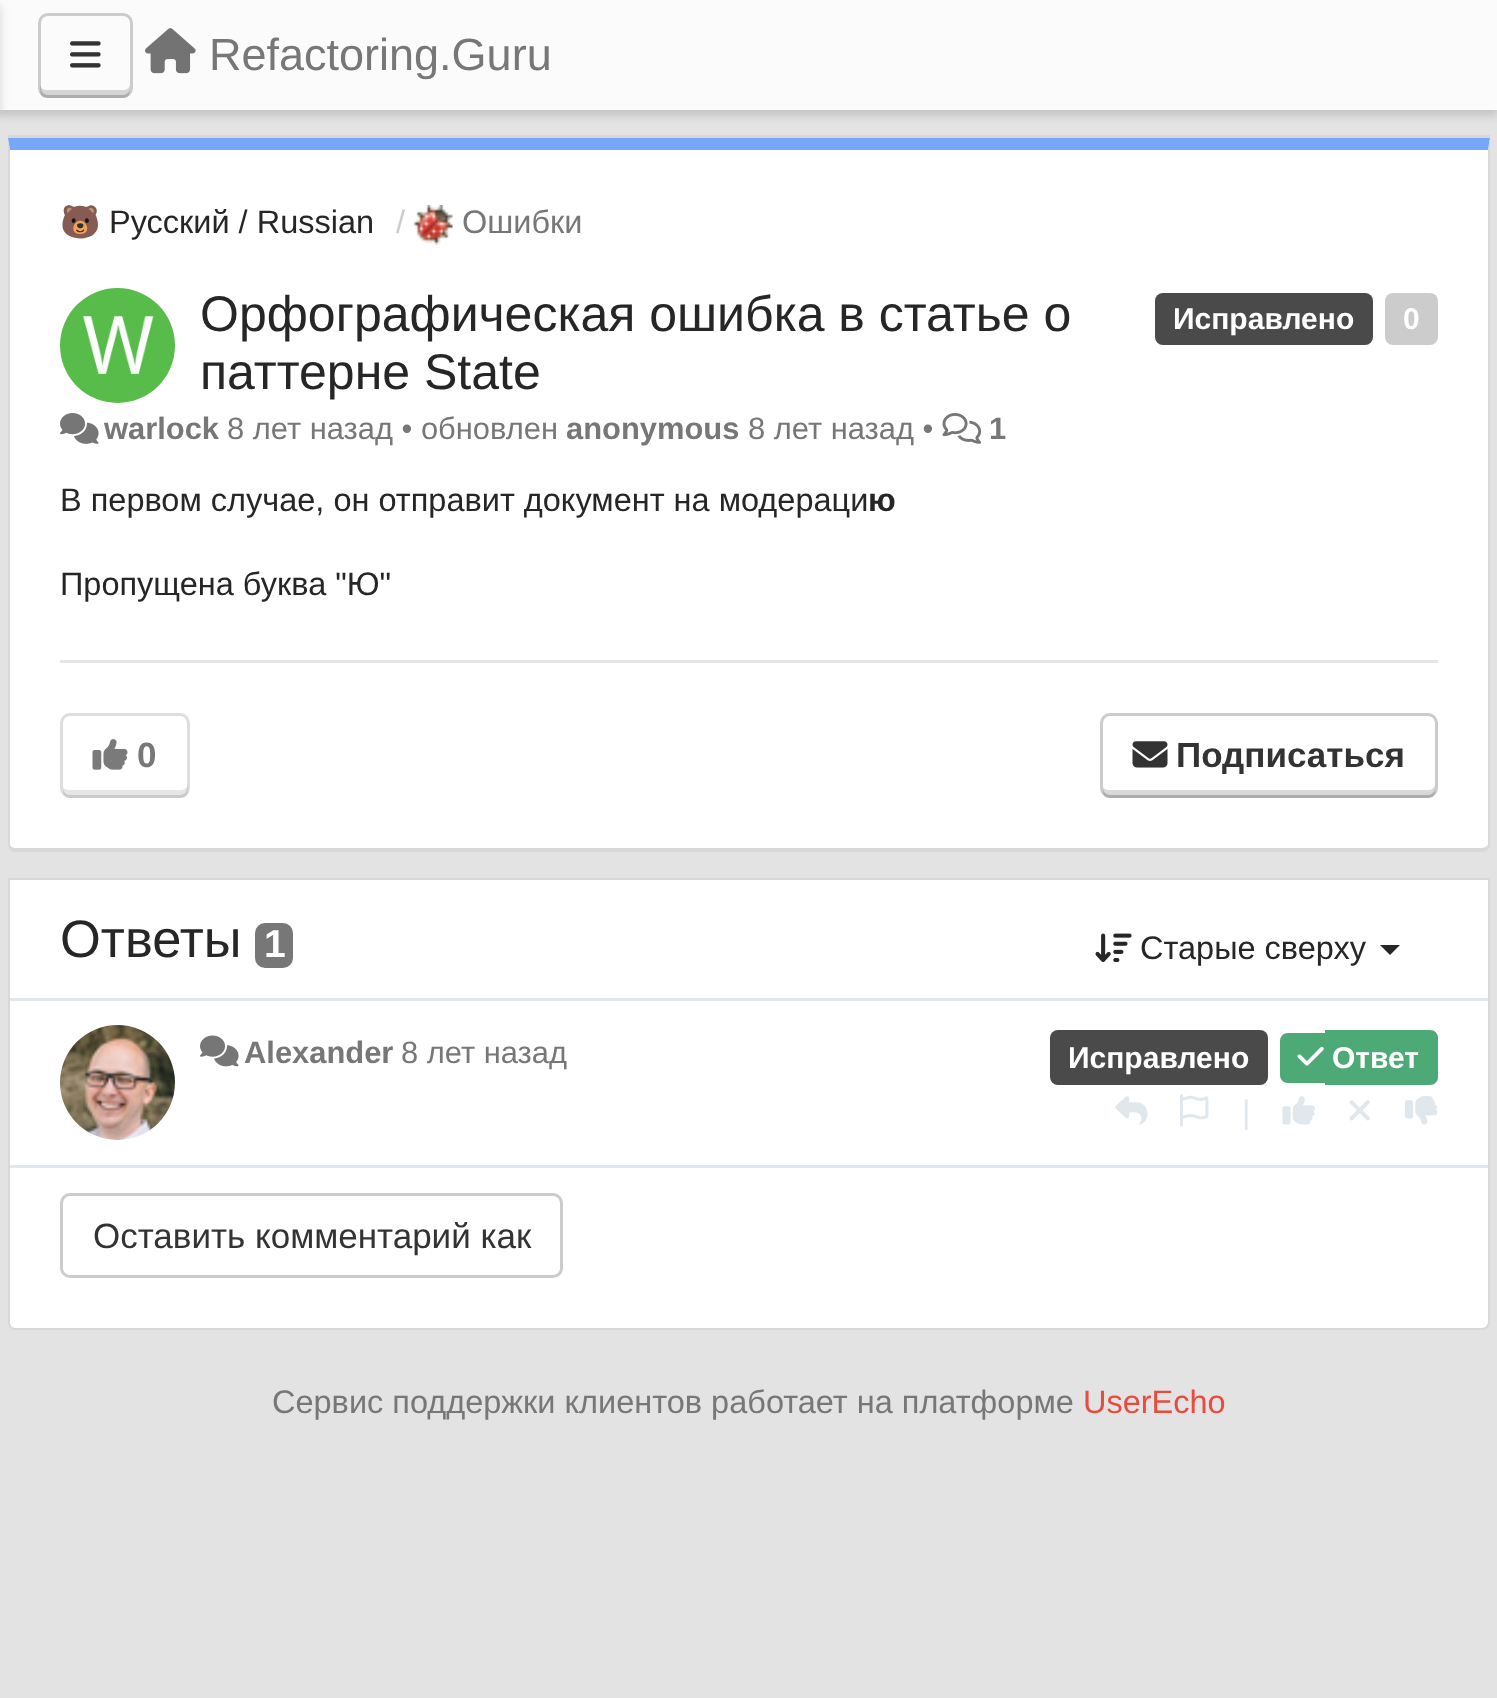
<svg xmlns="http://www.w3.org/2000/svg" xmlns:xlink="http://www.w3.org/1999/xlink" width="1497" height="1698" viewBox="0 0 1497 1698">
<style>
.cls-1{font:45px Liberation Sans;fill:#777777}
.cls-2{font:32.5px Noto Color Emoji;fill:#262626}
.cls-3{font:32.5px Liberation Sans;fill:#262626}
.cls-4{font:32.5px Liberation Sans;fill:#cccccc}
.cls-5{font:32.5px Liberation Sans;fill:#777777}
.cls-6{font:50px Liberation Sans;fill:#262626}
.cls-7{font:bold 30px Liberation Sans;fill:#ffffff}
.cls-8{font:bold 30.9px Liberation Sans;fill:#777777}
.cls-9{font:30.9px Liberation Sans;fill:#777777}
.cls-10{font:bold 32.5px Liberation Sans;fill:#262626}
.cls-11{font:bold 35px Liberation Sans;fill:#777777}
.cls-12{font:bold 35px Liberation Sans;fill:#333333}
.cls-13{font:52.5px Liberation Sans;fill:#262626}
.cls-14{font:bold 39px Liberation Sans;fill:#ffffff}
.cls-15{font:32.5px Liberation Sans;fill:#e1e8ed}
.cls-16{font:35px Liberation Sans;fill:#333333}
.cls-17{font:32.5px Liberation Sans;fill:#e74c3c}
</style>
<rect width="100%" height="100%" fill="#e3e3e3"/>
<rect fill="#000000" fill-opacity="0.15" filter="blur(5px)" x="0" y="5" width="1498" height="110"/>
<rect fill="#fbfbfb" x="0" y="0" width="1497" height="110"/>
<rect fill="#000000" fill-opacity="0.15" filter="blur(5px)" x="-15" y="5" width="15" height="110"/>
<rect fill="none" stroke="#cccccc" stroke-width="3" x="39.5" y="14.5" width="92" height="82" rx="8.5"/>
<image xlink:href="image0.png" x="70" y="41" width="31" height="27"/>
<path fill="#000000" fill-opacity="0.15" d="M40 84C40 100 41 98 59 98H111C129 98 130 100 130 84C130 87 127 90 124 90H46C43 90 40 87 40 84Z"/>
<image xlink:href="image1.png" x="145" y="28" width="51" height="46"/>
<rect fill="#d8d8d8" x="8" y="135" width="1482" height="3"/>
<path fill="#ffffff" d="M10 150H1488V845C1488 846 1485 848 1482 848H15C12 848 10 846 10 845Z"/>
<path fill="#76a7fa" d="M8 138L10 150H1488L1490 138Z"/>
<path fill="#d8d8d8" d="M1490 845V138L1488 150V845L1487 846L1488 849C1489 848 1490 847 1490 845Z"/>
<path fill="#d8d8d8" d="M1488 849C1487 851 1485 852 1482 852H15C13 852 10 851 9 849L11 846C11 847 13 848 15 848H1482C1484 848 1486 847 1487 846Z"/>
<path fill="#d8d8d8" d="M10 150L8 140V845L9 849L11 846L10 845Z"/>
<image xlink:href="image2.png" x="412" y="205" width="41" height="40"/>
<circle fill="#58bc4a" cx="117.5" cy="345.5" r="57.5"/>
<image xlink:href="image3.png" x="83" y="316" width="71" height="58"/>
<rect fill="#4a4a4a" x="1155" y="293" width="218" height="52" rx="8"/>
<rect fill="#cccccc" x="1385" y="293" width="53" height="52" rx="8"/>
<image xlink:href="image4.png" x="60" y="413" width="39" height="31"/>
<image xlink:href="image5.png" x="942" y="413" width="40" height="31"/>
<rect fill="#e5e5e5" x="60" y="660" width="1378" height="3"/>
<rect fill="none" stroke="#dedede" stroke-width="3" x="61.5" y="714.5" width="127" height="82" rx="8.5"/>
<image xlink:href="image6.png" x="92" y="739" width="36" height="31"/>
<path fill="#595959" fill-opacity="0.15" d="M63 787V792C63 795 66 798 69 798H182C185 798 188 795 188 792V784C188 787 185 790 181 790H69C66 790 64 789 63 787Z"/>
<rect fill="none" stroke="#cccccc" stroke-width="3" x="1101.5" y="714.5" width="335" height="82" rx="8.5"/>
<image xlink:href="image7.png" x="1132" y="741" width="36" height="27"/>
<path fill="#000000" fill-opacity="0.15" d="M1103 787V792C1103 795 1106 798 1109 798H1429C1432 798 1435 795 1435 792V784C1435 787 1432 790 1429 790H1109C1106 790 1104 789 1103 787Z"/>
<rect fill="#d8d8d8" x="8" y="878" width="1482" height="2"/>
<path fill="#ffffff" d="M10 880H1488V1323C1488 1326 1486 1328 1483 1328H15C12 1328 10 1326 10 1323Z"/>
<path fill="#d8d8d8" fill-rule="evenodd" d="M8 880H1490V1322C1490 1327 1487 1330 1482 1330H15C11 1330 8 1327 8 1322ZM10 880H1488V1322C1488 1325 1485 1328 1482 1328H15C12 1328 10 1325 10 1322Z"/>
<rect fill="#777777" x="255" y="923" width="38" height="45" rx="10"/>
<image xlink:href="image8.png" x="1095" y="933" width="37" height="29"/>
<path fill="#262626" d="M1380 945H1400L1390 955Z"/>
<rect fill="#e1e8ed" x="10" y="998" width="1478" height="3"/>
<rect fill="#e1e8ed" x="10" y="1165" width="1478" height="3"/>
<image xlink:href="image9.png" x="60" y="1025" width="115" height="115"/>
<image xlink:href="image10.png" x="200" y="1035" width="39" height="32"/>
<rect fill="#4a4a4a" x="1050" y="1030" width="218" height="55" rx="8"/>
<path fill="#4daa77" d="M1288 1033H1325V1083H1288C1283.5 1083 1280 1079.5 1280 1075V1041C1280 1036.5 1283.5 1033 1288 1033Z"/>
<path fill="#4daa77" d="M1325 1030H1430C1434.5 1030 1438 1033.5 1438 1038V1077C1438 1081.5 1434.5 1085 1430 1085H1325Z"/>
<image xlink:href="image11.png" x="1297" y="1046" width="27" height="20"/>
<image xlink:href="image12.png" x="1115" y="1096" width="33" height="29"/>
<image xlink:href="image13.png" x="1180" y="1094" width="29" height="33"/>
<image xlink:href="image14.png" x="1282" y="1096" width="33" height="29"/>
<image xlink:href="image15.png" x="1349" y="1100" width="21" height="21"/>
<image xlink:href="image16.png" x="1405" y="1096" width="33" height="29"/>
<rect fill="none" stroke="#cccccc" stroke-width="3" x="61.5" y="1194.5" width="500" height="82" rx="8.5"/>
<text class="cls-1" x="209" y="70">Refactoring.Guru</text>
<text class="cls-2" x="60" y="233">🐻</text>
<text class="cls-3" x="109" y="233">Русский / Russian</text>
<text class="cls-4" x="396" y="233">/</text>
<text class="cls-5" x="462" y="233">Ошибки</text>
<text class="cls-6"><tspan x="200" y="331">Орфографическая ошибка в статье о</tspan><tspan x="200" y="389">паттерне State</tspan></text>
<text class="cls-7" x="1173" y="329">Исправлено</text>
<text class="cls-7" x="1403" y="329">0</text>
<text class="cls-8" x="104" y="439">warlock</text>
<text class="cls-9" x="227" y="439">8 лет назад • обновлен</text>
<text class="cls-8" x="566" y="439">anonymous</text>
<text class="cls-9" x="748" y="439">8 лет назад •</text>
<text class="cls-8" x="989" y="439">1</text>
<text class="cls-3" x="60" y="511">В первом случае, он отправит документ на модераци</text>
<text class="cls-10" x="868" y="511">ю</text>
<text class="cls-3" x="60" y="595">Пропущена буква "Ю"</text>
<text class="cls-11" x="137" y="767">0</text>
<text class="cls-12" x="1176" y="767">Подписаться</text>
<text class="cls-13" x="60" y="957">Ответы</text>
<text class="cls-14" x="264" y="957">1</text>
<text class="cls-3" x="1140" y="959">Старые сверху</text>
<text class="cls-8" x="244" y="1063">Alexander</text>
<text class="cls-9" x="401" y="1063">8 лет назад</text>
<text class="cls-7" x="1068" y="1068">Исправлено</text>
<text class="cls-7" x="1332" y="1068">Ответ</text>
<text class="cls-15" x="1242" y="1123">|</text>
<text class="cls-16" x="93" y="1248">Оставить комментарий как</text>
<text class="cls-5" x="272" y="1413">Сервис поддержки клиентов работает на платформе</text>
<text class="cls-17" x="1083" y="1413">UserEcho</text>
</svg>
